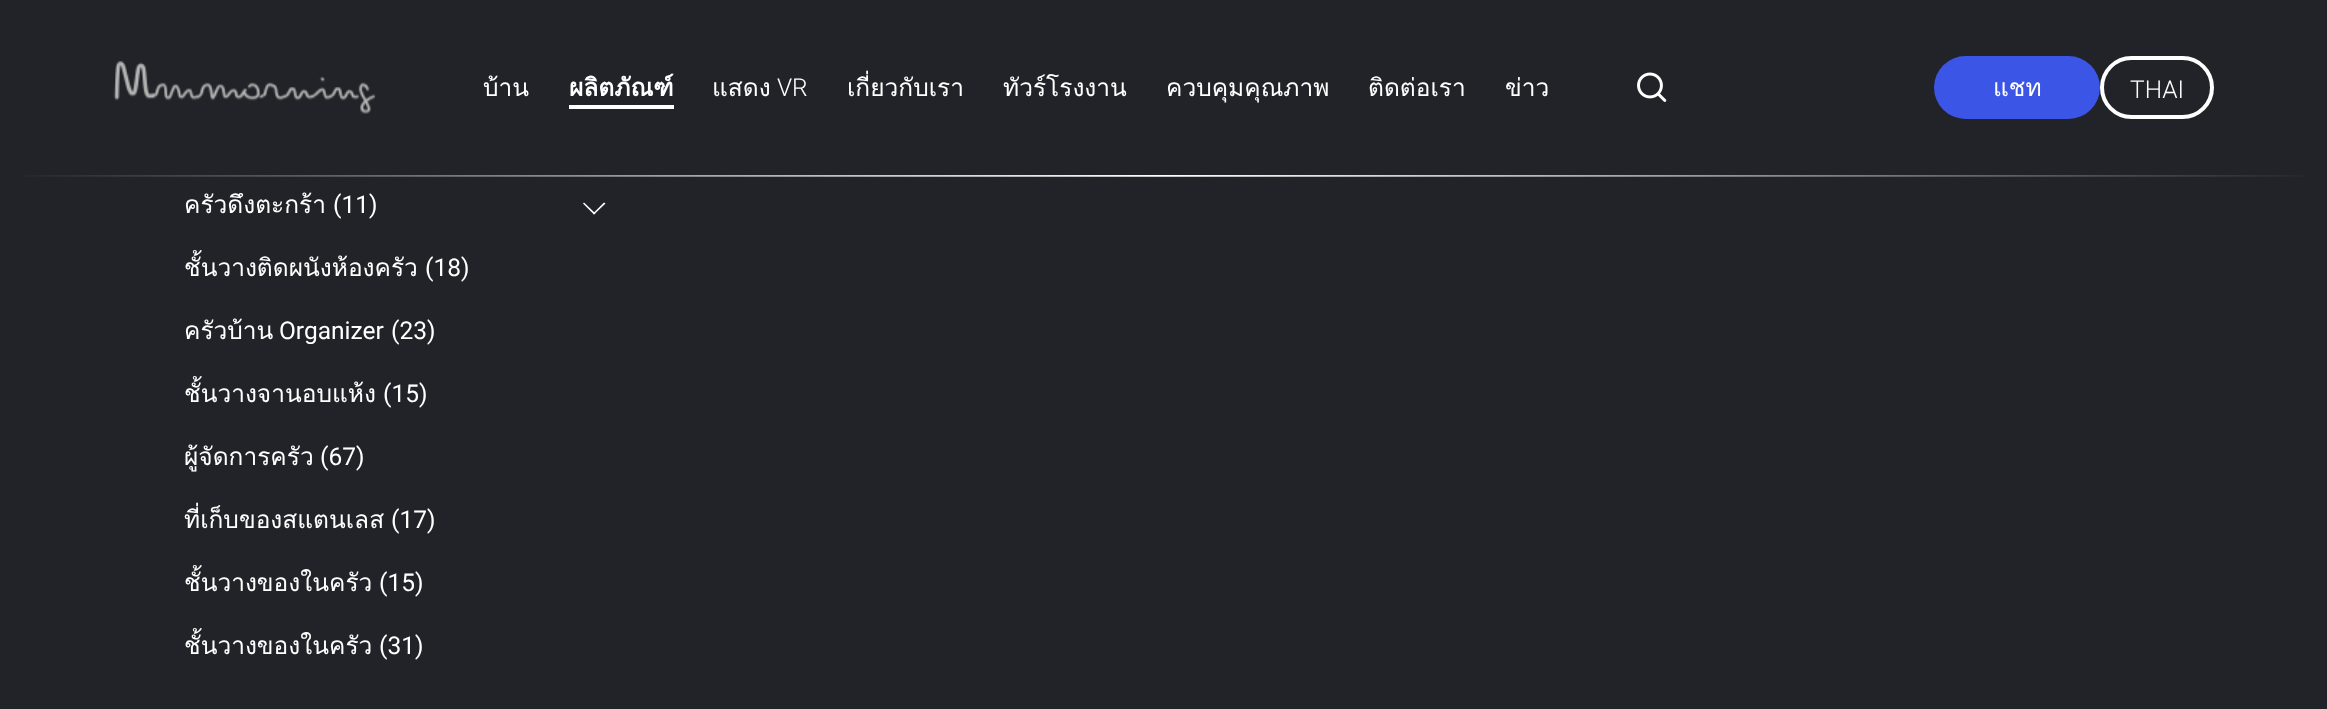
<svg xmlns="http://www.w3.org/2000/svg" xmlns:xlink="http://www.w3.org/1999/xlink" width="2327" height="709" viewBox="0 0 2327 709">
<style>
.cls-1{font:24.5px Loma;fill:#ffffff}
.cls-2{font:bold 24.5px Loma;fill:#ffffff}
.cls-3{font:300 24.5px Roboto;fill:#ffffff}
.cls-4{font:24.5px Roboto;fill:#ffffff}
</style>
<rect width="100%" height="100%" fill="#222328"/>
<image xlink:href="image0.png" x="23" y="175" width="2281" height="2"/>
<image xlink:href="image1.png" x="113" y="61" width="263" height="53"/>
<rect fill="#ffffff" x="569" y="105" width="105" height="4"/>
<image xlink:href="image2.png" x="1637" y="72" width="30" height="30"/>
<rect fill="#3b55e6" x="1934" y="56" width="166" height="63" rx="31.5"/>
<rect fill="none" stroke="#ffffff" stroke-width="4" x="2102" y="58" width="110" height="59" rx="29.5"/>
<path fill="#ffffff" d="M604 202.5L605.5 203.5L594 214.5L593 213.5Z"/>
<path fill="#ffffff" d="M584 202.5L595.5 213.5L594 214.5L583 203.5Z"/>
<text class="cls-1" x="483" y="96">บ้าน</text>
<text class="cls-2" x="569" y="96">ผลิตภัณฑ์</text>
<text class="cls-1" x="712" y="96">แสดง</text>
<text class="cls-3" x="777" y="96">VR</text>
<text class="cls-1" x="847" y="96">เกี่ยวกับเรา</text>
<text class="cls-1" x="1003" y="96">ทัวร์โรงงาน</text>
<text class="cls-1" x="1166" y="96">ควบคุมคุณภาพ</text>
<text class="cls-1" x="1368" y="96">ติดต่อเรา</text>
<text class="cls-1" x="1505" y="96">ข่าว</text>
<text class="cls-1" x="1993" y="96">แชท</text>
<text class="cls-3" x="2130" y="98">THAI</text>
<text class="cls-1" x="184" y="213">ครัวดึงตะกร้า</text>
<text class="cls-4" x="333" y="213">(11)</text>
<text class="cls-1" x="184" y="276">ชั้นวางติดผนังห้องครัว</text>
<text class="cls-4" x="425" y="276">(18)</text>
<text class="cls-1" x="184" y="339">ครัวบ้าน</text>
<text class="cls-4" x="279" y="339">Organizer</text>
<text class="cls-4" x="391" y="339">(23)</text>
<text class="cls-1" x="184" y="402">ชั้นวางจานอบแห้ง</text>
<text class="cls-4" x="383" y="402">(15)</text>
<text class="cls-1" x="184" y="465">ผู้จัดการครัว</text>
<text class="cls-4" x="320" y="465">(67)</text>
<text class="cls-1" x="184" y="528">ที่เก็บของสแตนเลส</text>
<text class="cls-4" x="391" y="528">(17)</text>
<text class="cls-1" x="184" y="591">ชั้นวางของในครัว</text>
<text class="cls-4" x="379" y="591">(15)</text>
<text class="cls-1" x="184" y="654">ชั้นวางของในครัว</text>
<text class="cls-4" x="379" y="654">(31)</text>
</svg>
